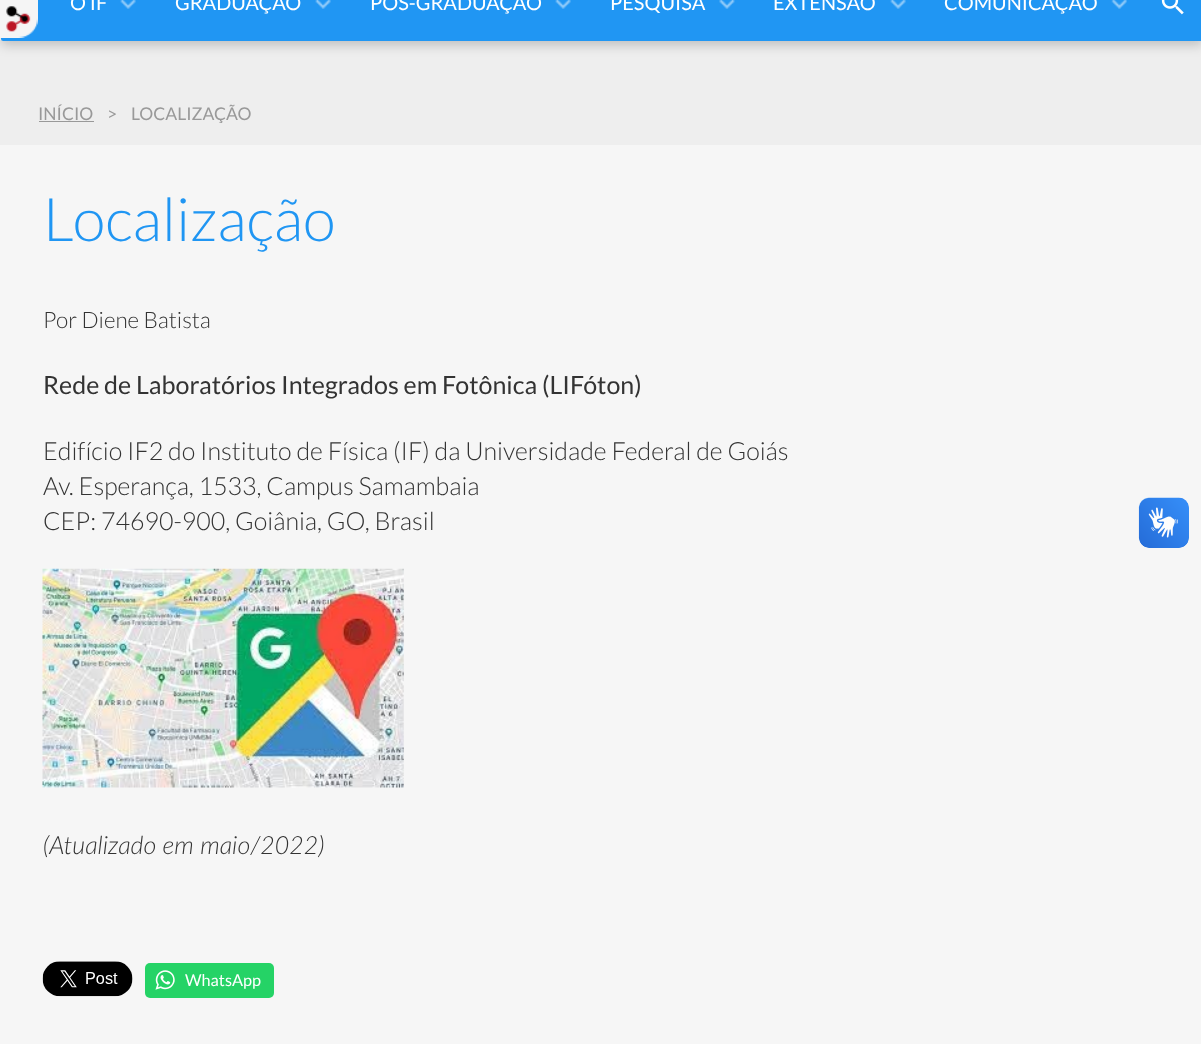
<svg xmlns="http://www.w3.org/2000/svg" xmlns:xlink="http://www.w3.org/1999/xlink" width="1201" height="1044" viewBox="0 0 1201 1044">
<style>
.cls-1{font:20px Lato;fill:#ffffff}
.cls-2{font:17.5px Lato;fill:#999999}
.cls-3{font:300 60px Lato;fill:#2096f3}
.cls-4{font:300 22.5px Lato;fill:#333333}
.cls-5{font:25px Lato;fill:#333333}
.cls-6{font:300 25px Lato;fill:#333333}
.cls-7{font:italic 300 25px Lato;fill:#333333}
.cls-8{font:16.25px Lato;fill:#ffffff}
</style>
<rect width="100%" height="100%" fill="#f6f6f6"/>
<rect fill="#ffffff" x="0" y="38" width="2" height="2"/>
<rect fill="#eeeeee" x="0" y="40" width="1201" height="105"/>
<rect fill="#000000" fill-opacity="0.2" filter="blur(6px)" x="1" y="-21" width="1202" height="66" rx="2.5"/>
<rect fill="#2096f3" x="1" y="-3" width="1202" height="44" rx="2.5"/>
<image xlink:href="image0.png" x="0" y="0" width="38" height="38"/>
<image xlink:href="image1.png" x="120" y="0" width="16" height="9"/>
<image xlink:href="image2.png" x="315" y="0" width="16" height="9"/>
<image xlink:href="image1.png" x="555" y="0" width="16" height="9"/>
<image xlink:href="image3.png" x="719" y="0" width="16" height="9"/>
<image xlink:href="image1.png" x="890" y="0" width="16" height="9"/>
<image xlink:href="image4.png" x="1111" y="0" width="16" height="9"/>
<image xlink:href="image5.png" x="1161" y="0" width="23" height="15"/>
<rect fill="#999999" x="39" y="121" width="55" height="1"/>
<image xlink:href="image6.png" x="42" y="568" width="362" height="220"/>
<image xlink:href="image7.png" x="42" y="961" width="91" height="36"/>
<rect fill="#25d366" x="145" y="963" width="129" height="35" rx="5"/>
<image xlink:href="image8.png" x="155" y="970" width="20" height="20"/>
<image xlink:href="image9.png" x="1138" y="497" width="51" height="51"/>
<image xlink:href="image10.png" x="1139" y="498" width="50" height="50"/>
<text class="cls-1" x="70" y="10">O IF</text>
<text class="cls-1" x="175" y="10">GRADUAÇÃO</text>
<text class="cls-1" x="370" y="10">PÓS-GRADUAÇÃO</text>
<text class="cls-1" x="610" y="10">PESQUISA</text>
<text class="cls-1" x="773" y="10">EXTENSÃO</text>
<text class="cls-1" x="944" y="10">COMUNICAÇÃO</text>
<text class="cls-2" x="38" y="120">INÍCIO</text>
<text class="cls-2" x="107" y="120">&gt;</text>
<text class="cls-2" x="131" y="120">LOCALIZAÇÃO</text>
<text class="cls-3" x="43" y="241">Localização</text>
<text class="cls-4" x="43" y="328">Por Diene Batista</text>
<text class="cls-5" x="43" y="394">Rede de Laboratórios Integrados em Fotônica (LIFóton)</text>
<text class="cls-6"><tspan x="43" y="460">Edifício IF2 do Instituto de Física (IF) da Universidade Federal de Goiás</tspan><tspan x="43" y="495">Av. Esperança, 1533, Campus Samambaia</tspan><tspan x="43" y="530">CEP: 74690-900, Goiânia, GO, Brasil</tspan></text>
<text class="cls-7" x="43" y="854">(Atualizado em maio/2022)</text>
<text class="cls-8" x="185" y="986">WhatsApp</text>
</svg>
